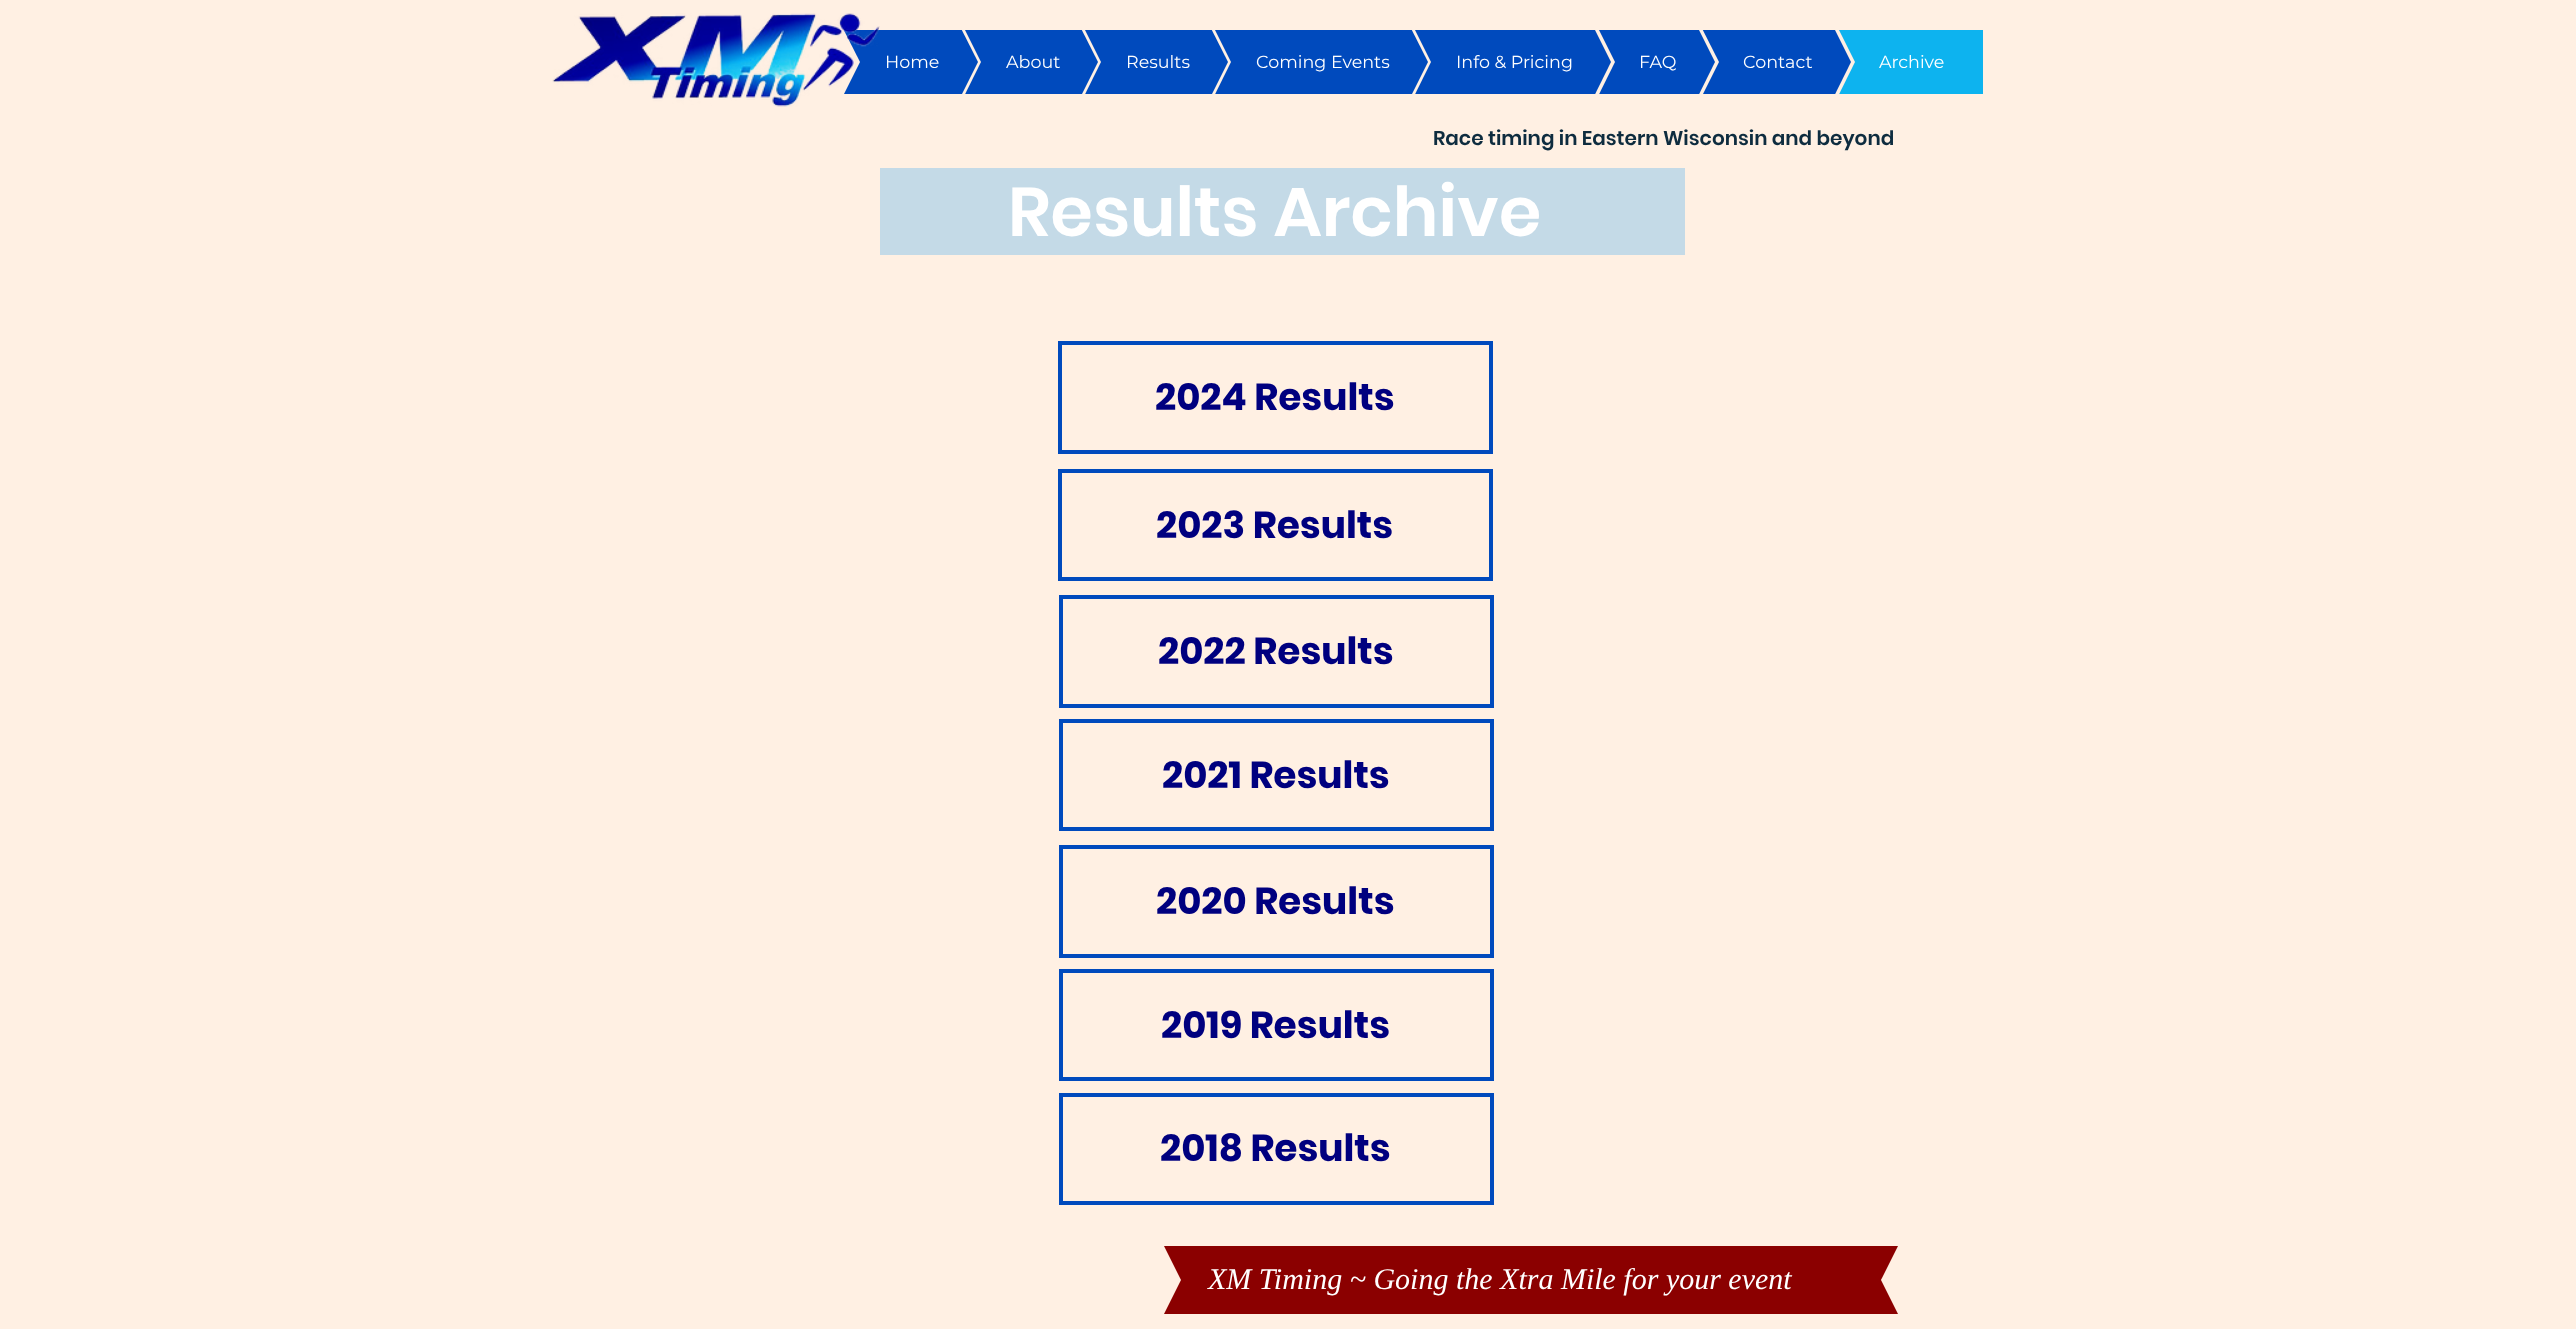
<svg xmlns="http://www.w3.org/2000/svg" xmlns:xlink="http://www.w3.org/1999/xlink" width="2576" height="1329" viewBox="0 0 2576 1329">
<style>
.cls-1{font:17.5px Montserrat;fill:#ffffff}
.cls-2{font:600 20px Poppins;fill:#0e2c3f}
.cls-3{font:600 68.75px Poppins;fill:#ffffff}
.cls-4{font:bold 37.5px Poppins;fill:#00007f}
.cls-5{font:italic 30px Liberation Serif;fill:#ffffff}
</style>
<defs>
<clipPath id="clip1"><rect x="773" y="30" width="87" height="64"/></clipPath>
<clipPath id="clip2"><rect x="890" y="30" width="88" height="64"/></clipPath>
<clipPath id="clip3"><rect x="894" y="30" width="87" height="64"/></clipPath>
<clipPath id="clip4"><rect x="1010" y="30" width="88" height="64"/></clipPath>
<clipPath id="clip5"><rect x="1014" y="30" width="87" height="64"/></clipPath>
<clipPath id="clip6"><rect x="1140" y="30" width="88" height="64"/></clipPath>
<clipPath id="clip7"><rect x="1144" y="30" width="87" height="64"/></clipPath>
<clipPath id="clip8"><rect x="1340" y="30" width="88" height="64"/></clipPath>
<clipPath id="clip9"><rect x="1344" y="30" width="87" height="64"/></clipPath>
<clipPath id="clip10"><rect x="1524" y="30" width="87" height="64"/></clipPath>
<clipPath id="clip11"><rect x="1528" y="30" width="87" height="64"/></clipPath>
<clipPath id="clip12"><rect x="1628" y="30" width="87" height="64"/></clipPath>
<clipPath id="clip13"><rect x="1631" y="30" width="88" height="64"/></clipPath>
<clipPath id="clip14"><rect x="1764" y="30" width="87" height="64"/></clipPath>
<clipPath id="clip15"><rect x="1768" y="30" width="87" height="64"/></clipPath>
<clipPath id="clip16"><rect x="1164" y="1246" width="367" height="35"/></clipPath>
<clipPath id="clip17"><rect x="1530" y="1246" width="368" height="35"/></clipPath>
<clipPath id="clip18"><rect x="1164" y="1280" width="367" height="34"/></clipPath>
<clipPath id="clip19"><rect x="1530" y="1280" width="368" height="34"/></clipPath>
</defs>
<rect width="100%" height="100%" fill="#fff0e3"/>
<g clip-path="url(#clip1)">
<path fill="#004abd" d="M772-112H860V62Z"/>
<path fill="#004abd" d="M860 238H772L860 62Z"/>
</g>
<rect fill="#004abd" x="860" y="30" width="30" height="64"/>
<image xlink:href="image0.png" x="552" y="13" width="328" height="94"/>
<g clip-path="url(#clip2)">
<path fill="#004abd" d="M978 62H890V-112Z"/>
<path fill="#004abd" d="M890 62H978L890 238Z"/>
</g>
<g clip-path="url(#clip3)">
<path fill="#004abd" d="M894-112H981V62Z"/>
<path fill="#004abd" d="M981 238H894L981 62Z"/>
</g>
<rect fill="#004abd" x="981" y="30" width="29" height="64"/>
<g clip-path="url(#clip4)">
<path fill="#004abd" d="M1098 62H1010V-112Z"/>
<path fill="#004abd" d="M1010 62H1098L1010 238Z"/>
</g>
<g clip-path="url(#clip5)">
<path fill="#004abd" d="M1014-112H1101V62Z"/>
<path fill="#004abd" d="M1101 238H1014L1101 62Z"/>
</g>
<rect fill="#004abd" x="1101" y="30" width="39" height="64"/>
<g clip-path="url(#clip6)">
<path fill="#004abd" d="M1228 62H1140V-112Z"/>
<path fill="#004abd" d="M1140 62H1228L1140 238Z"/>
</g>
<g clip-path="url(#clip7)">
<path fill="#004abd" d="M1144-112H1231V62Z"/>
<path fill="#004abd" d="M1231 238H1144L1231 62Z"/>
</g>
<rect fill="#004abd" x="1231" y="30" width="109" height="64"/>
<g clip-path="url(#clip8)">
<path fill="#004abd" d="M1428 62H1340V-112Z"/>
<path fill="#004abd" d="M1340 62H1428L1340 238Z"/>
</g>
<g clip-path="url(#clip9)">
<path fill="#004abd" d="M1344-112H1431V62Z"/>
<path fill="#004abd" d="M1431 238H1344L1431 62Z"/>
</g>
<rect fill="#004abd" x="1431" y="30" width="93" height="64"/>
<g clip-path="url(#clip10)">
<path fill="#004abd" d="M1611 62H1524V-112Z"/>
<path fill="#004abd" d="M1524 62H1611L1524 238Z"/>
</g>
<g clip-path="url(#clip11)">
<path fill="#004abd" d="M1528-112H1615V62Z"/>
<path fill="#004abd" d="M1615 238H1528L1615 62Z"/>
</g>
<rect fill="#004abd" x="1615" y="30" width="13" height="64"/>
<g clip-path="url(#clip12)">
<path fill="#004abd" d="M1715 62H1628V-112Z"/>
<path fill="#004abd" d="M1628 62H1715L1628 238Z"/>
</g>
<g clip-path="url(#clip13)">
<path fill="#004abd" d="M1631-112H1719V62Z"/>
<path fill="#004abd" d="M1719 238H1631L1719 62Z"/>
</g>
<rect fill="#004abd" x="1719" y="30" width="45" height="64"/>
<g clip-path="url(#clip14)">
<path fill="#004abd" d="M1851 62H1764V-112Z"/>
<path fill="#004abd" d="M1764 62H1851L1764 238Z"/>
</g>
<g clip-path="url(#clip15)">
<path fill="#0db3ef" d="M1768-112H1855V62Z"/>
<path fill="#0db3ef" d="M1855 238H1768L1855 62Z"/>
</g>
<rect fill="#0db3ef" x="1855" y="30" width="128" height="64"/>
<rect fill="#c4dae7" x="880" y="168" width="805" height="87"/>
<rect fill="none" stroke="#004abd" stroke-width="4" x="1060" y="343" width="431" height="109"/>
<rect fill="none" stroke="#004abd" stroke-width="4" x="1060" y="471" width="431" height="108"/>
<rect fill="none" stroke="#004abd" stroke-width="4" x="1061" y="597" width="431" height="109"/>
<rect fill="none" stroke="#004abd" stroke-width="4" x="1061" y="721" width="431" height="108"/>
<rect fill="none" stroke="#004abd" stroke-width="4" x="1061" y="847" width="431" height="109"/>
<rect fill="none" stroke="#004abd" stroke-width="4" x="1061" y="971" width="431" height="108"/>
<rect fill="none" stroke="#004abd" stroke-width="4" x="1061" y="1095" width="431" height="108"/>
<g clip-path="url(#clip16)">
<path fill="#8b0000" d="M1164 1246H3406L2156 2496H1789Z"/>
</g>
<g clip-path="url(#clip17)">
<path fill="#8b0000" d="M-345 1246H1898L1272 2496H905Z"/>
</g>
<g clip-path="url(#clip18)">
<path fill="#8b0000" d="M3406 1314H1164L1789 64H2156Z"/>
</g>
<g clip-path="url(#clip19)">
<path fill="#8b0000" d="M1898 1314H-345L905 64H1272Z"/>
</g>
<text class="cls-1" x="885" y="68">Home</text>
<text class="cls-1" x="1006" y="68">About</text>
<text class="cls-1" x="1126" y="68">Results</text>
<text class="cls-1" x="1256" y="68">Coming Events</text>
<text class="cls-1" x="1456" y="68">Info &amp; Pricing</text>
<text class="cls-1" x="1639" y="68">FAQ</text>
<text class="cls-1" x="1743" y="68">Contact</text>
<text class="cls-1" x="1879" y="68">Archive</text>
<text class="cls-2" x="1433" y="145">Race timing in Eastern Wisconsin and beyond</text>
<text class="cls-3" x="1008" y="236">Results Archive</text>
<text class="cls-4" x="1155" y="410">2024 Results</text>
<text class="cls-4" x="1156" y="538">2023 Results</text>
<text class="cls-4" x="1158" y="664">2022 Results</text>
<text class="cls-4" x="1162" y="788">2021 Results</text>
<text class="cls-4" x="1156" y="914">2020 Results</text>
<text class="cls-4" x="1161" y="1038">2019 Results</text>
<text class="cls-4" x="1160" y="1161">2018 Results</text>
<text class="cls-5" x="1208" y="1289">XM Timing ~ Going the Xtra Mile for your event</text>
</svg>
